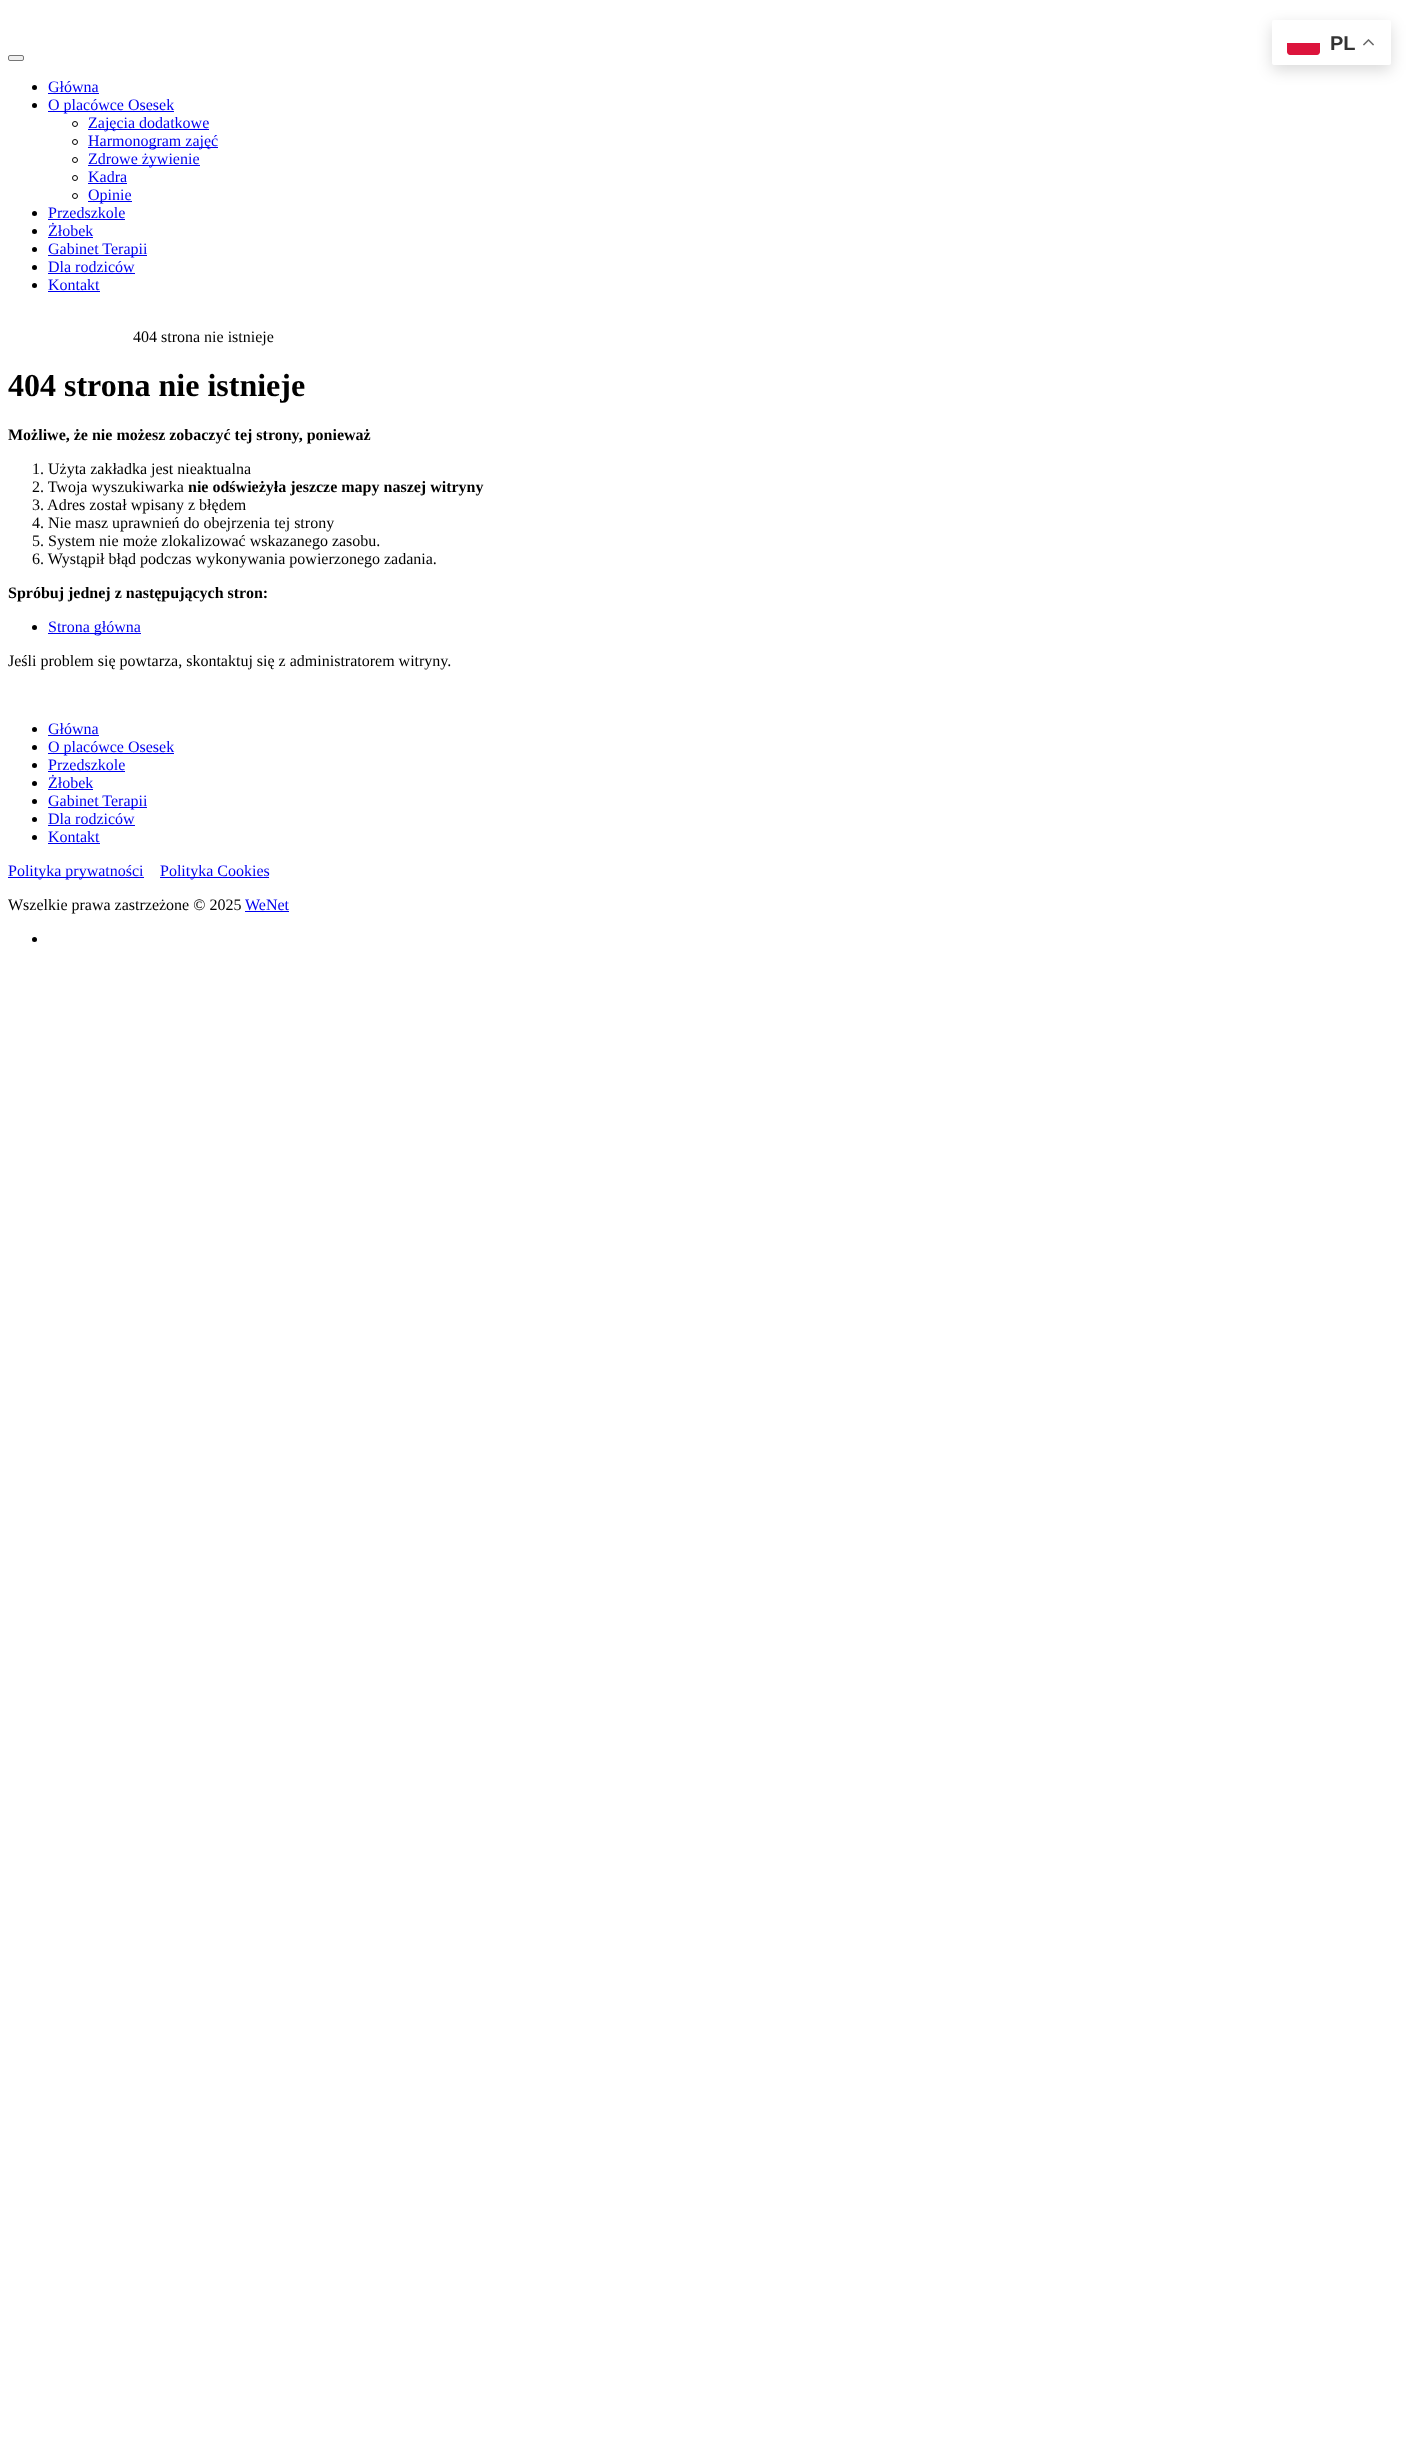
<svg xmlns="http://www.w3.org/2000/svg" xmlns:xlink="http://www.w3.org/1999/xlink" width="1411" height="2455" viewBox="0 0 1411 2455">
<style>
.cls-1{font:bold 20px Liberation Sans;fill:#333333}
.cls-2{font:16px Liberation Serif;fill:#0000ee}
.cls-3{font:16px Liberation Serif;fill:#000000}
.cls-4{font:bold 32px Liberation Serif;fill:#000000}
.cls-5{font:bold 16px Liberation Serif;fill:#000000}
</style>
<rect width="100%" height="100%" fill="#ffffff"/>
<rect fill="#000000" fill-opacity="0.15" filter="blur(7.5px)" x="1272" y="25" width="119" height="45" rx="2"/>
<rect fill="#ffffff" x="1272" y="20" width="119" height="45" rx="2"/>
<path fill="#dc143c" d="M1287 43H1320V52C1320 53.5 1318.5 55 1317 55H1290C1288.5 55 1287 53.5 1287 52Z"/>
<image xlink:href="image0.png" x="1363" y="39" width="11" height="7"/>
<rect fill="#efefef" stroke="#767676" x="8.5" y="55.5" width="15" height="5" rx="1.5"/>
<circle fill="#000000" cx="34.5" cy="87.5" r="2.5"/>
<rect fill="#0000ee" x="48" y="93" width="51" height="1"/>
<circle fill="#000000" cx="34.5" cy="105.5" r="2.5"/>
<rect fill="#0000ee" x="48" y="111" width="126" height="1"/>
<circle fill="none" stroke="#000000" cx="75" cy="124" r="2.5"/>
<rect fill="#0000ee" x="88" y="129" width="121" height="1"/>
<circle fill="none" stroke="#000000" cx="75" cy="142" r="2.5"/>
<rect fill="#0000ee" x="88" y="147" width="130" height="1"/>
<circle fill="none" stroke="#000000" cx="75" cy="160" r="2.5"/>
<rect fill="#0000ee" x="88" y="165" width="112" height="1"/>
<circle fill="none" stroke="#000000" cx="75" cy="178" r="2.5"/>
<rect fill="#0000ee" x="88" y="183" width="39" height="1"/>
<circle fill="none" stroke="#000000" cx="75" cy="196" r="2.5"/>
<rect fill="#0000ee" x="88" y="201" width="44" height="1"/>
<circle fill="#000000" cx="34.5" cy="213.5" r="2.5"/>
<rect fill="#0000ee" x="48" y="219" width="77" height="1"/>
<circle fill="#000000" cx="34.5" cy="231.5" r="2.5"/>
<rect fill="#0000ee" x="48" y="237" width="45" height="1"/>
<circle fill="#000000" cx="34.5" cy="249.5" r="2.5"/>
<rect fill="#0000ee" x="48" y="255" width="99" height="1"/>
<circle fill="#000000" cx="34.5" cy="267.5" r="2.5"/>
<rect fill="#0000ee" x="48" y="273" width="87" height="1"/>
<circle fill="#000000" cx="34.5" cy="285.5" r="2.5"/>
<rect fill="#0000ee" x="48" y="291" width="52" height="1"/>
<circle fill="#000000" cx="34.5" cy="627.5" r="2.5"/>
<rect fill="#0000ee" x="48" y="633" width="93" height="1"/>
<circle fill="#000000" cx="34.5" cy="729.5" r="2.5"/>
<rect fill="#0000ee" x="48" y="735" width="51" height="1"/>
<circle fill="#000000" cx="34.5" cy="747.5" r="2.5"/>
<rect fill="#0000ee" x="48" y="753" width="126" height="1"/>
<circle fill="#000000" cx="34.5" cy="765.5" r="2.5"/>
<rect fill="#0000ee" x="48" y="771" width="77" height="1"/>
<circle fill="#000000" cx="34.5" cy="783.5" r="2.5"/>
<rect fill="#0000ee" x="48" y="789" width="45" height="1"/>
<circle fill="#000000" cx="34.5" cy="801.5" r="2.5"/>
<rect fill="#0000ee" x="48" y="807" width="99" height="1"/>
<circle fill="#000000" cx="34.5" cy="819.5" r="2.5"/>
<rect fill="#0000ee" x="48" y="825" width="87" height="1"/>
<circle fill="#000000" cx="34.5" cy="837.5" r="2.5"/>
<rect fill="#0000ee" x="48" y="843" width="52" height="1"/>
<rect fill="#0000ee" x="8" y="877" width="136" height="1"/>
<rect fill="#0000ee" x="160" y="877" width="109" height="1"/>
<rect fill="#0000ee" x="245" y="911" width="44" height="1"/>
<circle fill="#000000" cx="34.5" cy="939.5" r="2.5"/>
<text class="cls-1" x="1330" y="50">PL</text>
<text class="cls-2"><tspan x="48" y="92">Główna</tspan><tspan x="48" y="110">O placówce Osesek</tspan></text>
<text class="cls-2"><tspan x="88" y="128">Zajęcia dodatkowe</tspan><tspan x="88" y="146">Harmonogram zajęć</tspan><tspan x="88" y="164">Zdrowe żywienie</tspan><tspan x="88" y="182">Kadra</tspan><tspan x="88" y="200">Opinie</tspan></text>
<text class="cls-2"><tspan x="48" y="218">Przedszkole</tspan><tspan x="48" y="236">Żłobek</tspan><tspan x="48" y="254">Gabinet Terapii</tspan><tspan x="48" y="272">Dla rodziców</tspan><tspan x="48" y="290">Kontakt</tspan></text>
<text class="cls-3" x="133" y="342">404 strona nie istnieje</text>
<text class="cls-4" x="8" y="396">404 strona nie istnieje</text>
<text class="cls-5" x="8" y="440">Możliwe, że nie możesz zobaczyć tej strony, ponieważ</text>
<text class="cls-3"><tspan x="32" y="474">1. Użyta zakładka jest nieaktualna</tspan><tspan x="32" y="492">2. Twoja wyszukiwarka</tspan></text>
<text class="cls-5" x="188" y="492">nie odświeżyła jeszcze mapy naszej witryny</text>
<text class="cls-3"><tspan x="32" y="510">3. Adres został wpisany z błędem</tspan><tspan x="32" y="528">4. Nie masz uprawnień do obejrzenia tej strony</tspan><tspan x="32" y="546">5. System nie może zlokalizować wskazanego zasobu.</tspan><tspan x="32" y="564">6. Wystąpił błąd podczas wykonywania powierzonego zadania.</tspan></text>
<text class="cls-5" x="8" y="598">Spróbuj jednej z następujących stron:</text>
<text class="cls-2" x="48" y="632">Strona główna</text>
<text class="cls-3" x="8" y="666">Jeśli problem się powtarza, skontaktuj się z administratorem witryny.</text>
<text class="cls-2"><tspan x="48" y="734">Główna</tspan><tspan x="48" y="752">O placówce Osesek</tspan><tspan x="48" y="770">Przedszkole</tspan><tspan x="48" y="788">Żłobek</tspan><tspan x="48" y="806">Gabinet Terapii</tspan><tspan x="48" y="824">Dla rodziców</tspan><tspan x="48" y="842">Kontakt</tspan></text>
<text class="cls-2" x="8" y="876">Polityka prywatności</text>
<text class="cls-2" x="160" y="876">Polityka Cookies</text>
<text class="cls-3" x="8" y="910">Wszelkie prawa zastrzeżone © 2025</text>
<text class="cls-2" x="245" y="910">WeNet</text>
</svg>
